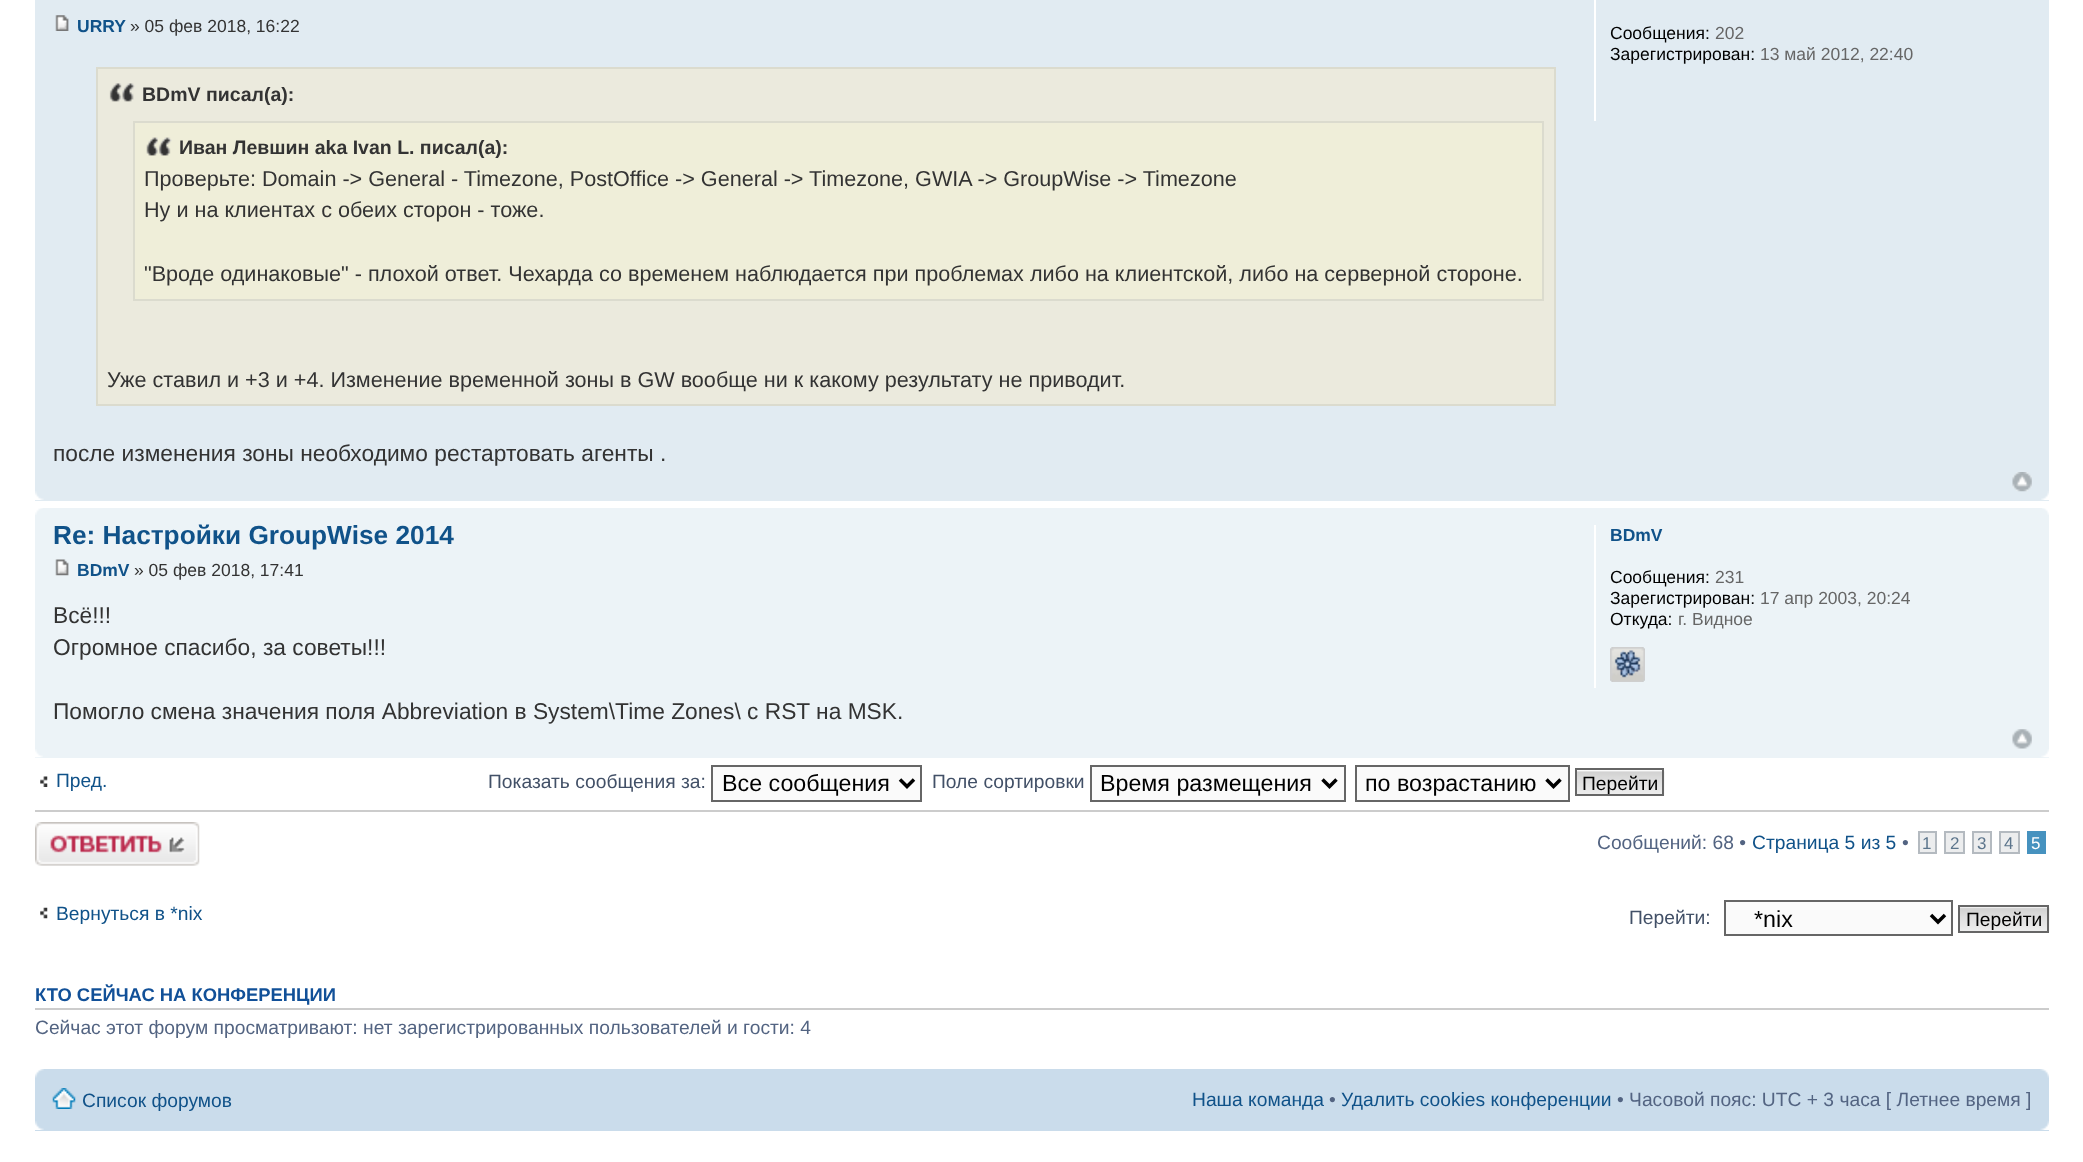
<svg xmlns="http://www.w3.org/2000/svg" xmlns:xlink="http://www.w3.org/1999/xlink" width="2083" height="1162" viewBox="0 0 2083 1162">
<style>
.cls-1{font:bold 17.5px Liberation Sans;fill:#105289}
.cls-2{font:17.5px Liberation Sans;fill:#333333}
.cls-3{font:bold 19.5px Liberation Sans;fill:#333333}
.cls-4{font:21.6px Liberation Sans;fill:#333333}
.cls-5{font:22.75px Liberation Sans;fill:#333333}
.cls-6{font:17.5px Liberation Sans;fill:#000000}
.cls-7{font:17.5px Liberation Sans;fill:#666666}
.cls-8{font:bold 26.25px Liberation Sans;fill:#105289}
.cls-9{font:19.25px Liberation Sans;fill:#105289}
.cls-10{font:19.25px Liberation Sans;fill:#425067}
.cls-11{font:23.25px Liberation Sans;fill:#000000}
.cls-12{font:19.25px Liberation Sans;fill:#000000}
.cls-13{font:19.25px Liberation Sans;fill:#536482}
.cls-14{font:17px Liberation Sans;fill:#5c758c}
.cls-15{font:17px Liberation Sans;fill:#ffffff}
.cls-16{font:bold 18.4px Liberation Sans;fill:#115098}
</style>
<rect width="100%" height="100%" fill="#ffffff"/>
<rect fill="#e1ebf2" x="35" y="0" width="2014" height="501"/>
<image xlink:href="image0.png" x="55" y="15" width="14" height="16"/>
<rect fill="#ebeadd" x="98" y="69" width="1456" height="335"/>
<image xlink:href="image1.png" x="109" y="83" width="26" height="19"/>
<rect fill="none" stroke="#dbdbce" stroke-width="2" x="97" y="68" width="1458" height="337"/>
<rect fill="#efeed9" x="135" y="123" width="1407" height="176"/>
<image xlink:href="image2.png" x="146" y="137" width="26" height="19"/>
<rect fill="none" stroke="#dbdbce" stroke-width="2" x="134" y="122" width="1409" height="178"/>
<rect fill="#ffffff" x="1594" y="0" width="2" height="121"/>
<image xlink:href="image3.png" x="2012" y="472" width="20" height="20"/>
<image xlink:href="image4.png" x="35" y="491" width="9" height="9"/>
<image xlink:href="image5.png" x="2041" y="491" width="8" height="9"/>
<rect fill="#ecf3f7" x="35" y="508" width="2014" height="250"/>
<image xlink:href="image6.png" x="35" y="508" width="8" height="7"/>
<image xlink:href="image7.png" x="2042" y="508" width="7" height="7"/>
<image xlink:href="image8.png" x="55" y="559" width="14" height="17"/>
<rect fill="#ffffff" x="1594" y="525" width="2" height="163"/>
<image xlink:href="image9.png" x="1610" y="647" width="35" height="35"/>
<image xlink:href="image10.png" x="1610" y="647" width="35" height="35"/>
<image xlink:href="image11.png" x="2012" y="729" width="20" height="20"/>
<image xlink:href="image12.png" x="35" y="749" width="8" height="9"/>
<image xlink:href="image13.png" x="2041" y="749" width="8" height="9"/>
<image xlink:href="image14.png" x="40" y="776" width="8" height="11"/>
<rect fill="#fafafa" stroke="#666666" stroke-width="2" x="712" y="766" width="209" height="35"/>
<path fill="none" stroke="#000000" stroke-width="3.5" d="M900 779.5L907 786.5L914 779.5"/>
<rect fill="#fafafa" stroke="#666666" stroke-width="2" x="1091" y="766" width="254" height="35"/>
<path fill="none" stroke="#000000" stroke-width="3.5" d="M1322.5 779.5L1329.5 786.5L1336.5 779.5"/>
<rect fill="#fafafa" stroke="#666666" stroke-width="2" x="1356" y="766" width="213" height="35"/>
<path fill="none" stroke="#000000" stroke-width="3.5" d="M1546.5 779.5L1553.5 786.5L1560.5 779.5"/>
<rect fill="#fafafa" x="1577" y="770" width="85" height="1"/>
<image xlink:href="image15.png" x="1577" y="771" width="88" height="25"/>
<rect fill="none" stroke="#666666" stroke-width="2" x="1576" y="769" width="87" height="26"/>
<rect fill="#cccccc" x="35" y="810" width="2014" height="2"/>
<image xlink:href="image16.png" x="35" y="822" width="165" height="44"/>
<rect fill="#ecedee" stroke="#b4bac0" stroke-width="2" x="1919" y="832" width="17" height="21"/>
<rect fill="#ecedee" stroke="#b4bac0" stroke-width="2" x="1945" y="832" width="19" height="21"/>
<rect fill="#ecedee" stroke="#b4bac0" stroke-width="2" x="1973" y="832" width="18" height="21"/>
<rect fill="#ecedee" stroke="#b4bac0" stroke-width="2" x="2000" y="832" width="19" height="21"/>
<rect fill="#4692bf" x="2027" y="831" width="19" height="23"/>
<image xlink:href="image17.png" x="40" y="907" width="8" height="12"/>
<rect fill="#fafafa" stroke="#666666" stroke-width="2" x="1725" y="901" width="227" height="34"/>
<path fill="none" stroke="#000000" stroke-width="3.5" d="M1931 915L1938 922L1945 915"/>
<image xlink:href="image18.png" x="1960" y="906" width="90" height="26"/>
<rect fill="none" stroke="#666666" stroke-width="2" x="1959" y="906" width="89" height="26"/>
<rect fill="#cccccc" x="35" y="1008" width="2014" height="2"/>
<rect fill="#cadceb" x="35" y="1069" width="2014" height="62"/>
<image xlink:href="image19.png" x="35" y="1069" width="9" height="9"/>
<image xlink:href="image20.png" x="2040" y="1069" width="9" height="9"/>
<image xlink:href="image21.png" x="52" y="1088" width="24" height="21"/>
<image xlink:href="image22.png" x="35" y="1121" width="9" height="9"/>
<image xlink:href="image23.png" x="2040" y="1121" width="9" height="9"/>
<text class="cls-1" x="77" y="32">URRY</text>
<text class="cls-2" x="130" y="32">» 05 фев 2018, 16:22</text>
<text class="cls-3" x="142" y="101">BDmV писал(а):</text>
<text class="cls-3" x="179" y="154">Иван Левшин aka Ivan L. писал(а):</text>
<text class="cls-4"><tspan x="144" y="186">Проверьте: Domain -&gt; General - Timezone, PostOffice -&gt; General -&gt; Timezone, GWIA -&gt; GroupWise -&gt; Timezone</tspan><tspan x="144" y="217">Ну и на клиентах с обеих сторон - тоже.</tspan></text>
<text class="cls-4" x="144" y="281">"Вроде одинаковые" - плохой ответ. Чехарда со временем наблюдается при проблемах либо на клиентской, либо на серверной стороне.</text>
<text class="cls-4" x="107" y="387">Уже ставил и +3 и +4. Изменение временной зоны в GW вообще ни к какому результату не приводит.</text>
<text class="cls-5" x="53" y="461">после изменения зоны необходимо рестартовать агенты .</text>
<text class="cls-6" x="1610" y="39">Сообщения:</text>
<text class="cls-7" x="1715" y="39">202</text>
<text class="cls-6" x="1610" y="60">Зарегистрирован:</text>
<text class="cls-7" x="1760" y="60">13 май 2012, 22:40</text>
<text class="cls-8" x="53" y="544">Re: Настройки GroupWise 2014</text>
<text class="cls-1" x="77" y="576">BDmV</text>
<text class="cls-2" x="134" y="576">» 05 фев 2018, 17:41</text>
<text class="cls-5"><tspan x="53" y="623">Всё!!!</tspan><tspan x="53" y="655">Огромное спасибо, за советы!!!</tspan></text>
<text class="cls-5" x="53" y="719">Помогло смена значения поля Abbreviation в System\Time Zones\ c RST на MSK.</text>
<text class="cls-1" x="1610" y="541">BDmV</text>
<text class="cls-6" x="1610" y="583">Сообщения:</text>
<text class="cls-7" x="1715" y="583">231</text>
<text class="cls-6" x="1610" y="604">Зарегистрирован:</text>
<text class="cls-7" x="1760" y="604">17 апр 2003, 20:24</text>
<text class="cls-6" x="1610" y="625">Откуда:</text>
<text class="cls-7" x="1678" y="625">г. Видное</text>
<text class="cls-9" x="56" y="787">Пред.</text>
<text class="cls-10" x="488" y="788">Показать сообщения за:</text>
<text class="cls-11" x="722" y="791">Все сообщения</text>
<text class="cls-10" x="932" y="788">Поле сортировки</text>
<text class="cls-11" x="1100" y="791">Время размещения</text>
<text class="cls-11" x="1365" y="791">по возрастанию</text>
<text class="cls-12" x="1582" y="790">Перейти</text>
<text class="cls-13" x="1597" y="849">Сообщений: 68 •</text>
<text class="cls-9" x="1752" y="849">Страница 5 из 5</text>
<text class="cls-13" x="1902" y="849">•</text>
<text class="cls-14" x="1922" y="849">1</text>
<text class="cls-14" x="1950" y="849">2</text>
<text class="cls-14" x="1977" y="849">3</text>
<text class="cls-14" x="2004" y="849">4</text>
<text class="cls-15" x="2031" y="849">5</text>
<text class="cls-9" x="56" y="920">Вернуться в *nix</text>
<text class="cls-10" x="1629" y="924">Перейти:</text>
<text class="cls-11" x="1754" y="927">*nix</text>
<text class="cls-12" x="1966" y="926">Перейти</text>
<text class="cls-16" x="35" y="1001">КТО СЕЙЧАС НА КОНФЕРЕНЦИИ</text>
<text class="cls-13" x="35" y="1034">Сейчас этот форум просматривают: нет зарегистрированных пользователей и гости: 4</text>
<text class="cls-9" x="82" y="1107">Список форумов</text>
<text class="cls-9" x="1192" y="1106">Наша команда</text>
<text class="cls-13" x="1329" y="1106">•</text>
<text class="cls-9" x="1341" y="1106">Удалить cookies конференции</text>
<text class="cls-13" x="1617" y="1106">• Часовой пояс: UTC + 3 часа [ Летнее время ]</text>
</svg>
